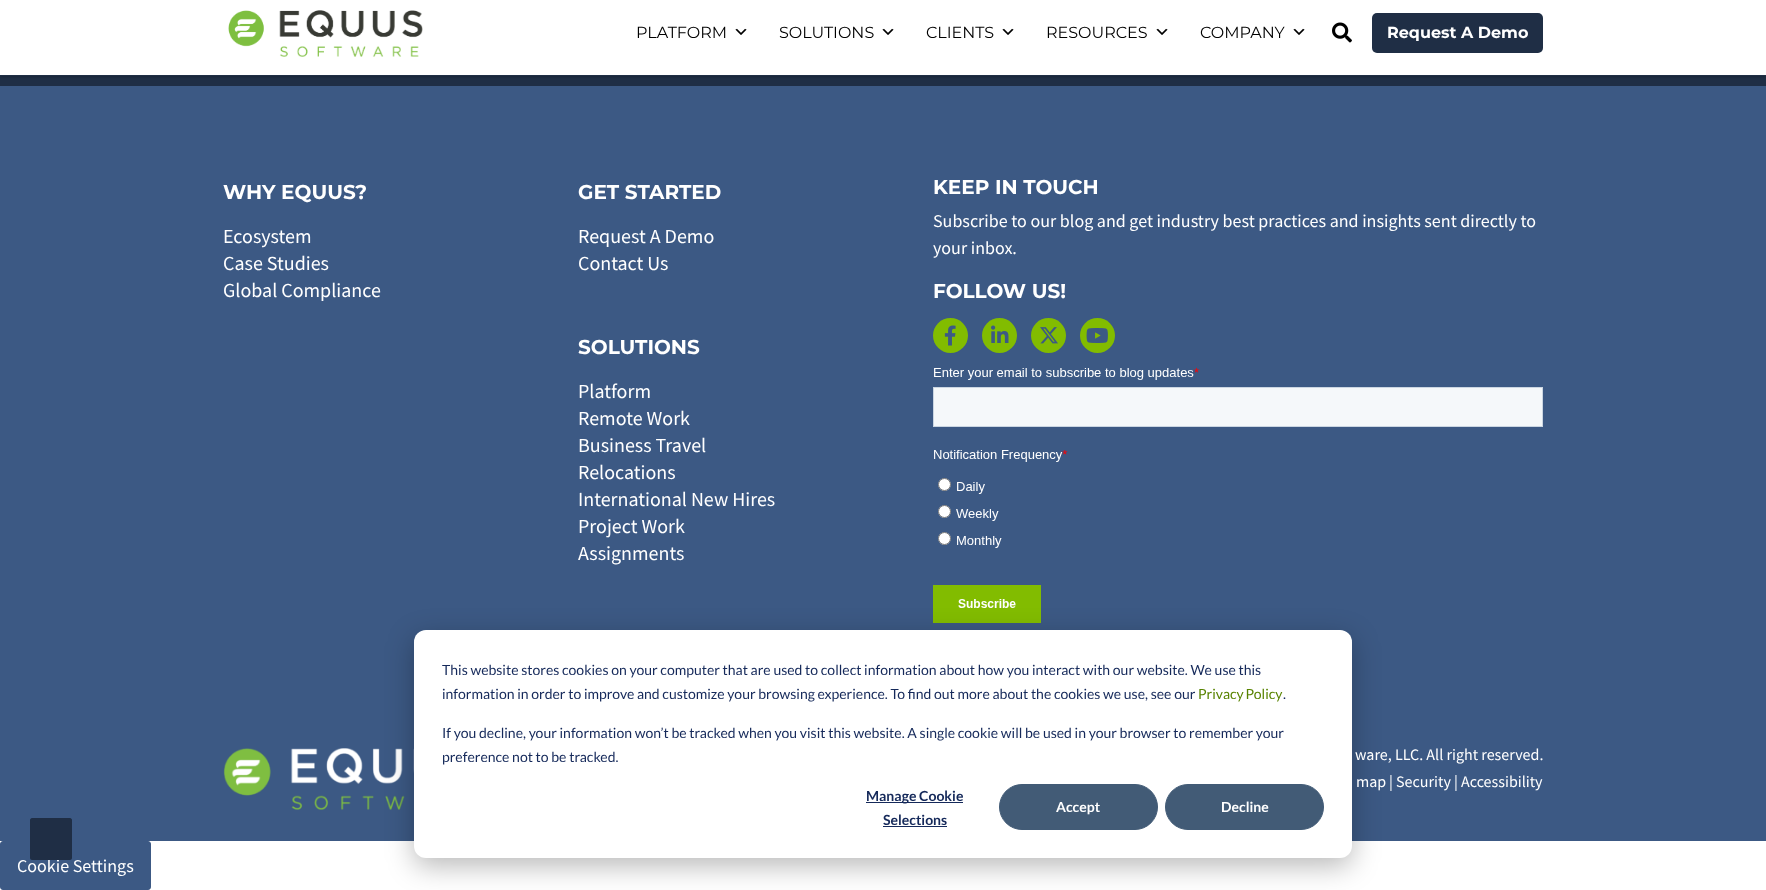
<svg xmlns="http://www.w3.org/2000/svg" xmlns:xlink="http://www.w3.org/1999/xlink" width="1766" height="890" viewBox="0 0 1766 890">
<style>
.cls-1{font:100 16px Montserrat;fill:#000000}
.cls-2{font:bold 16px Montserrat;fill:#ffffff}
.cls-3{font:bold 20px Montserrat;fill:#ffffff}
.cls-4{font:20px Source Sans Pro;fill:#ffffff}
.cls-5{font:18px Source Sans Pro;fill:#ffffff}
.cls-6{font:16px Source Sans Pro;fill:#ffffff}
.cls-7{font:14px Lato;fill:#15295a}
.cls-8{font:14px Lato;fill:#588300}
.cls-9{font:bold 14px Lato;fill:#15295a}
.cls-10{font:bold 14px Lato;fill:#ffffff}
</style>
<rect width="100%" height="100%" fill="#ffffff"/>
<rect fill="#1f2e45" x="0" y="76" width="1766" height="10"/>
<rect fill="#000000" fill-opacity="0.2" filter="blur(1px)" x="0" y="1" width="1766" height="76"/>
<rect fill="#ffffff" x="0" y="0" width="1766" height="75"/>
<rect fill="#1f2e45" x="0" y="75" width="1766" height="1"/>
<image xlink:href="image0.png" x="228" y="10" width="195" height="47"/>
<image xlink:href="image1.png" x="735" y="28" width="12" height="7"/>
<image xlink:href="image1.png" x="882" y="28" width="12" height="7"/>
<image xlink:href="image1.png" x="1002" y="28" width="12" height="7"/>
<image xlink:href="image1.png" x="1156" y="28" width="12" height="7"/>
<image xlink:href="image1.png" x="1293" y="28" width="12" height="7"/>
<image xlink:href="image2.png" x="1332" y="22" width="20" height="21"/>
<rect fill="#1f2e45" x="1372" y="13" width="171" height="40" rx="5"/>
<rect fill="#3c5984" x="0" y="86" width="1766" height="634"/>
<circle fill="#82bc00" cx="950.5" cy="335.5" r="17.5"/>
<image xlink:href="image3.png" x="944" y="325" width="12" height="21"/>
<circle fill="#82bc00" cx="999.5" cy="335.5" r="17.5"/>
<image xlink:href="image4.png" x="991" y="325" width="18" height="18"/>
<circle fill="#82bc00" cx="1048.5" cy="335.5" r="17.5"/>
<image xlink:href="image5.png" x="1040" y="327" width="18" height="17"/>
<circle fill="#82bc00" cx="1097.5" cy="335.5" r="17.5"/>
<image xlink:href="image6.png" x="1086" y="328" width="22" height="15"/>
<image xlink:href="image7.png" x="933" y="368" width="610" height="255"/>
<rect fill="#3c5984" x="0" y="720" width="1766" height="121"/>
<image xlink:href="image8.png" x="223" y="748" width="191" height="62"/>
<rect fill="#000000" fill-opacity="0.28" filter="blur(14px)" x="414" y="638" width="938" height="228" rx="12"/>
<rect fill="#ffffff" x="414" y="630" width="938" height="228" rx="12"/>
<rect fill="#15295a" x="866" y="802" width="97" height="1"/>
<rect fill="#15295a" x="883" y="826" width="64" height="1"/>
<rect fill="#425b76" stroke="#425b76" x="999.5" y="784.5" width="158" height="45" rx="22.5"/>
<rect fill="#425b76" stroke="#425b76" x="1165.5" y="784.5" width="158" height="45" rx="22.5"/>
<rect fill="#3c5984" stroke="#3c5984" x="0.5" y="841.5" width="150" height="48" rx="2.5"/>
<text class="cls-1" x="636" y="38">PLATFORM</text>
<text class="cls-1" x="779" y="38">SOLUTIONS</text>
<text class="cls-1" x="926" y="38">CLIENTS</text>
<text class="cls-1" x="1046" y="38">RESOURCES</text>
<text class="cls-1" x="1200" y="38">COMPANY</text>
<text class="cls-2" x="1387" y="38">Request A Demo</text>
<text class="cls-3" x="223" y="199">WHY EQUUS?</text>
<text class="cls-4"><tspan x="223" y="243">Ecosystem</tspan><tspan x="223" y="270">Case Studies</tspan><tspan x="223" y="297">Global Compliance</tspan></text>
<text class="cls-3" x="578" y="199">GET STARTED</text>
<text class="cls-4"><tspan x="578" y="243">Request A Demo</tspan><tspan x="578" y="270">Contact Us</tspan></text>
<text class="cls-3" x="578" y="354">SOLUTIONS</text>
<text class="cls-4"><tspan x="578" y="398">Platform</tspan><tspan x="578" y="425">Remote Work</tspan><tspan x="578" y="452">Business Travel</tspan><tspan x="578" y="479">Relocations</tspan><tspan x="578" y="506">International New Hires</tspan><tspan x="578" y="533">Project Work</tspan><tspan x="578" y="560">Assignments</tspan></text>
<text class="cls-3" x="933" y="194">KEEP IN TOUCH</text>
<text class="cls-5"><tspan x="933" y="227">Subscribe to our blog and get industry best practices and insights sent directly to</tspan><tspan x="933" y="254">your inbox.</tspan></text>
<text class="cls-3" x="933" y="298">FOLLOW US!</text>
<text class="cls-6" x="1355" y="760">ware, LLC. All right reserved.</text>
<text class="cls-6" x="1356" y="787">map</text>
<text class="cls-6" x="1389" y="787">|</text>
<text class="cls-6" x="1396" y="787">Security</text>
<text class="cls-6" x="1454" y="787">|</text>
<text class="cls-6" x="1461" y="787">Accessibility</text>
<text class="cls-7"><tspan x="442" y="675">This website stores cookies on your computer that are used to collect information about how you interact with our website. We use this</tspan><tspan x="442" y="699">information in order to improve and customize your browsing experience. To find out more about the cookies we use, see our</tspan></text>
<text class="cls-8" x="1198" y="699" word-spacing="-1">Privacy Policy</text>
<text class="cls-7" x="1283" y="699">.</text>
<text class="cls-7"><tspan x="442" y="738">If you decline, your information won’t be tracked when you visit this website. A single cookie will be used in your browser to remember your</tspan><tspan x="442" y="762">preference not to be tracked.</tspan></text>
<text class="cls-9" x="866" y="801">Manage Cookie</text>
<text class="cls-9" x="883" y="825">Selections</text>
<text class="cls-10" x="1056" y="812">Accept</text>
<text class="cls-10" x="1221" y="812">Decline</text>
<text class="cls-5" x="17" y="872">Cookie Settings</text>
<path fill="#1f2e45" d="M70 860H32C31 860 30 859 30 858V820C30 819 31 818 32 818H70C71 818 72 819 72 820V858C72 859 71 860 70 860Z"/>
</svg>
